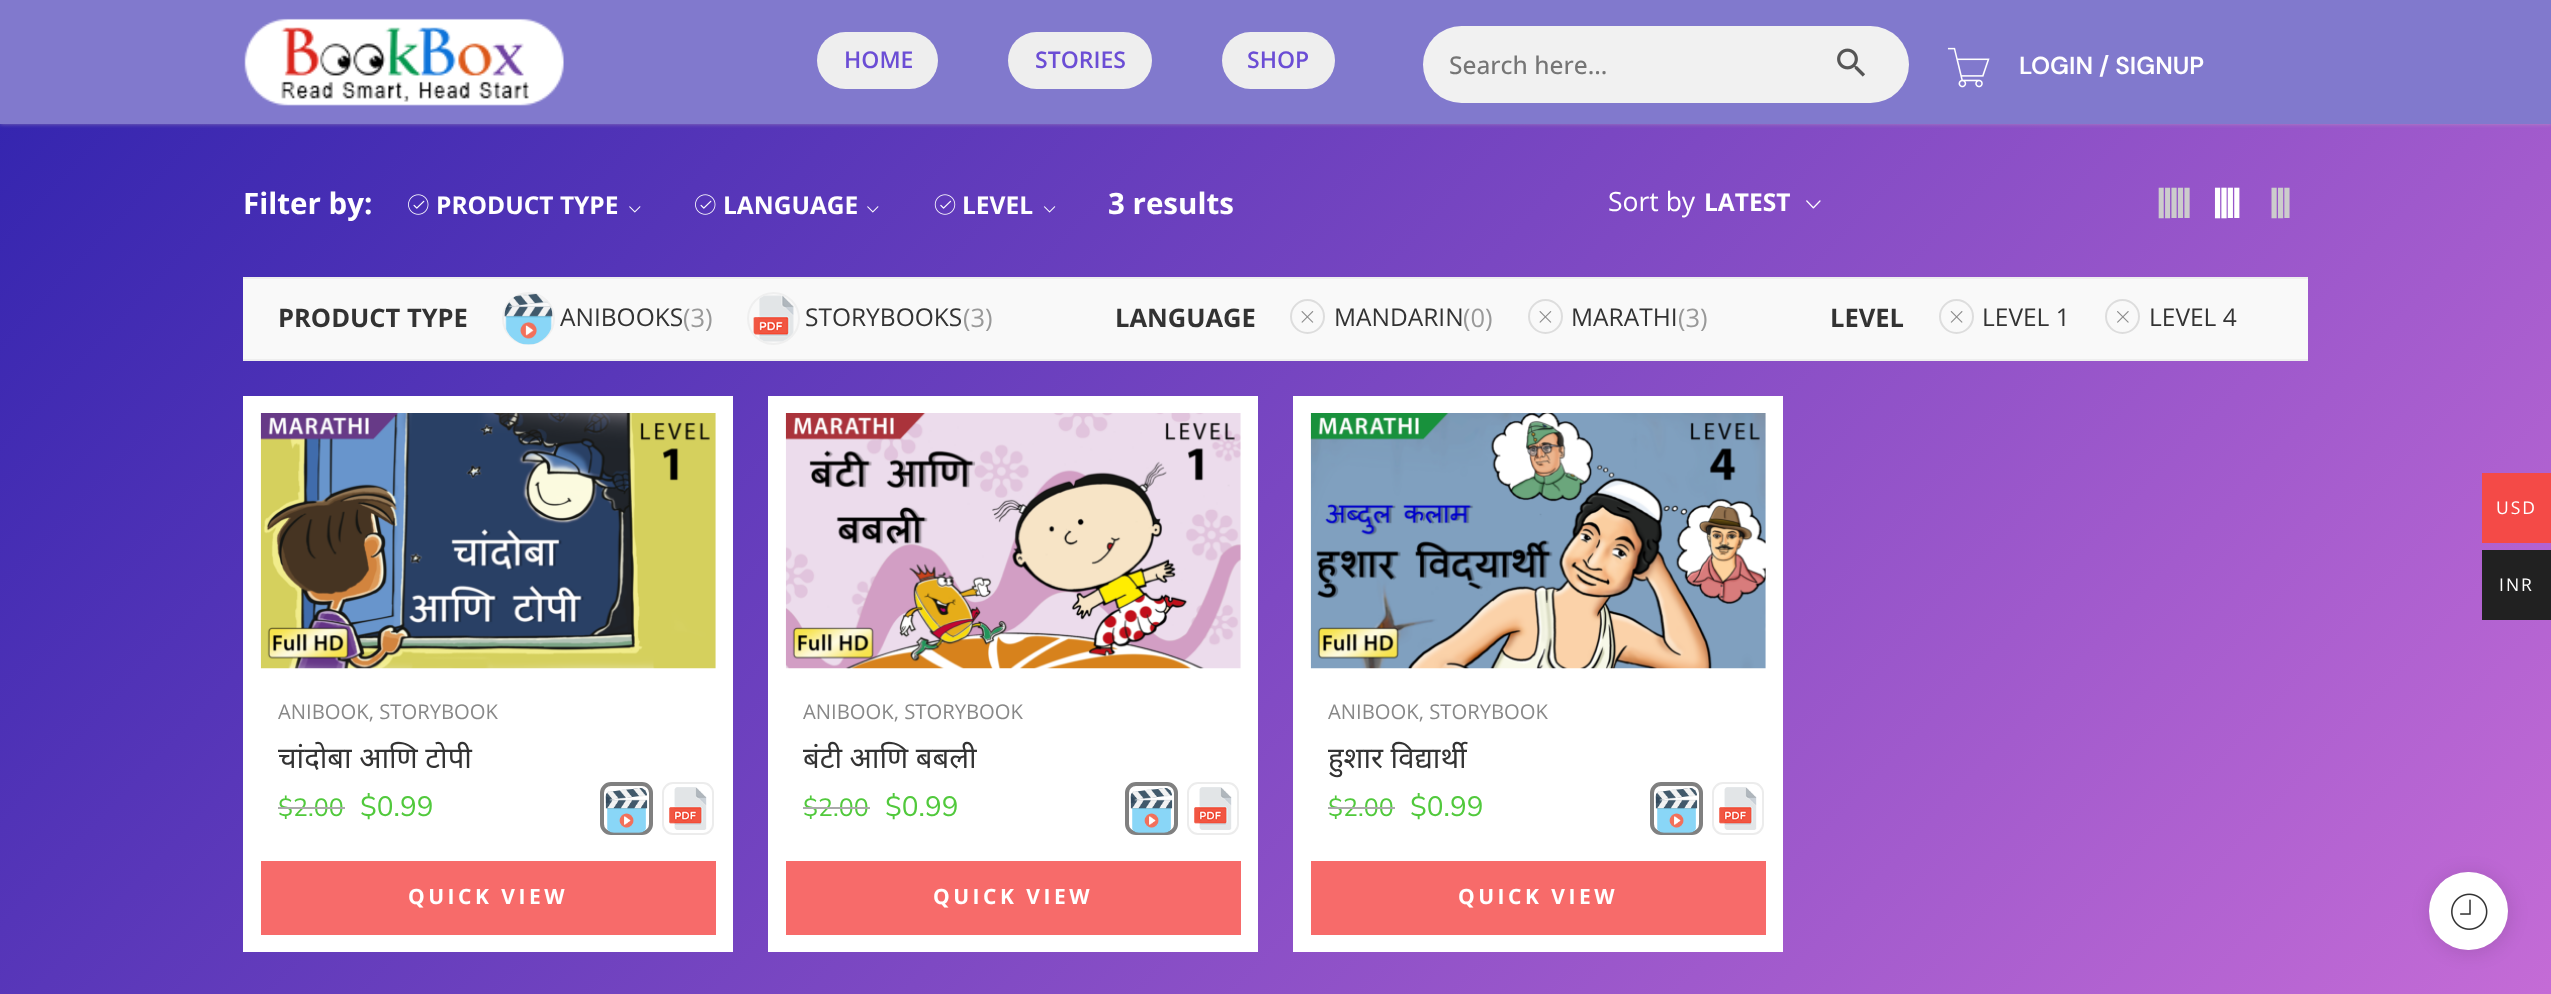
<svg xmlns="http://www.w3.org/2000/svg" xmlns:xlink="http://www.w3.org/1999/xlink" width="2551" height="994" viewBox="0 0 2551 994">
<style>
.cls-1{font:600 23px Open Sans;fill:#6b4dd5}
.cls-2{font:500 24.5px Open Sans;fill:#757575}
.cls-3{font:600 24.5px DM Sans;fill:#ffffff}
.cls-4{font:bold 29.5px Open Sans;fill:#ffffff}
.cls-5{font:bold 24.5px Open Sans;fill:#ffffff}
.cls-6{font:26.5px Open Sans;fill:#ffffff}
.cls-7{font:38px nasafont;fill:#cccccc}
.cls-8{font:38px nasafont;fill:#ffffff}
.cls-9{font:bold 25.5px Open Sans;fill:#333333}
.cls-10{font:24.5px Open Sans;fill:#333333}
.cls-11{font:25.5px Open Sans;fill:#999999}
.cls-12{font:20.25px Open Sans;fill:#888888}
.cls-13{font:29.25px Noto Sans;fill:#333333}
.cls-14{font:25px Nunito Sans;fill:#51c93c}
.cls-15{font:28px Nunito Sans;fill:#51c93c}
.cls-16{font:bold 21px Open Sans;letter-spacing:3.5px;fill:#ffffff}
.cls-17{font:17.5px Open Sans;letter-spacing:2px;fill:#ffffff}
</style>
<defs>
<linearGradient id="g1" gradientUnits="userSpaceOnUse" x1="321" y1="-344" x2="2230" y2="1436"><stop offset="0" stop-color="#3023ae"/><stop offset="1" stop-color="#c86dd7"/></linearGradient>
</defs>
<rect width="100%" height="100%" fill="#ffffff"/>
<rect fill="url(#g1)" x="0" y="124" width="2551" height="870"/>
<rect fill="#cabcbc" fill-opacity="0.5" filter="blur(2px)" x="0" y="0" width="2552" height="124"/>
<rect fill="#8179cd" x="0" y="0" width="2551" height="124"/>
<image xlink:href="image0.png" x="244" y="18" width="320" height="88"/>
<rect fill="#eeeeee" x="817" y="32" width="121" height="57" rx="28.5"/>
<rect fill="#eeeeee" x="1008" y="32" width="144" height="57" rx="28.5"/>
<rect fill="#eeeeee" x="1222" y="32" width="113" height="57" rx="28.5"/>
<rect fill="#f1f1f1" x="1423" y="26" width="486" height="77" rx="38.5"/>
<image xlink:href="image1.png" x="1837" y="48" width="28" height="29"/>
<image xlink:href="image2.png" x="1947" y="47" width="43" height="41"/>
<image xlink:href="image3.png" x="408" y="194" width="21" height="21"/>
<image xlink:href="image4.png" x="629" y="206" width="12" height="7"/>
<image xlink:href="image5.png" x="695" y="194" width="21" height="21"/>
<image xlink:href="image6.png" x="867" y="206" width="12" height="7"/>
<image xlink:href="image7.png" x="934" y="194" width="22" height="21"/>
<image xlink:href="image8.png" x="1043" y="206" width="13" height="7"/>
<image xlink:href="image9.png" x="1806" y="200" width="15" height="9"/>
<rect fill="#f9f9f9" x="243" y="279" width="2065" height="80"/>
<rect fill="#eeeeee" x="243" y="277" width="2065" height="2"/>
<rect fill="#eeeeee" x="243" y="359" width="2065" height="2"/>
<circle fill="none" stroke="#efefef" stroke-width="2" cx="528.5" cy="318.5" r="25.5"/>
<image xlink:href="image10.png" x="504" y="293" width="49" height="52"/>
<circle fill="none" stroke="#efefef" stroke-width="2" cx="773.5" cy="318.5" r="25.5"/>
<image xlink:href="image11.png" x="753" y="295" width="41" height="47"/>
<circle fill="none" stroke="#dddddd" stroke-width="2" cx="1307.5" cy="316.5" r="16.5"/>
<image xlink:href="image12.png" x="1301" y="311" width="13" height="12"/>
<circle fill="none" stroke="#dddddd" stroke-width="2" cx="1545.5" cy="316.5" r="16.5"/>
<image xlink:href="image12.png" x="1539" y="311" width="13" height="12"/>
<circle fill="none" stroke="#dddddd" stroke-width="2" cx="1956.5" cy="316.5" r="16.5"/>
<image xlink:href="image13.png" x="1950" y="311" width="13" height="12"/>
<circle fill="none" stroke="#dddddd" stroke-width="2" cx="2122.5" cy="316.5" r="16.5"/>
<image xlink:href="image14.png" x="2117" y="311" width="12" height="12"/>
<rect fill="#ffffff" x="243" y="396" width="490" height="556"/>
<image xlink:href="image15.png" x="260" y="413" width="456" height="256"/>
<rect fill="none" stroke="#808080" stroke-width="4" x="602" y="784" width="49" height="49" rx="9"/>
<image xlink:href="image16.png" x="605" y="787" width="43" height="46"/>
<rect fill="none" stroke="#ececec" stroke-width="2" x="663" y="783" width="50" height="51" rx="10"/>
<image xlink:href="image17.png" x="669" y="787" width="38" height="43"/>
<rect fill="#f76b6a" x="261" y="861" width="455" height="74"/>
<rect fill="#ffffff" x="768" y="396" width="490" height="556"/>
<image xlink:href="image18.png" x="785" y="413" width="456" height="256"/>
<rect fill="none" stroke="#808080" stroke-width="4" x="1127" y="784" width="49" height="49" rx="9"/>
<image xlink:href="image16.png" x="1130" y="787" width="43" height="46"/>
<rect fill="none" stroke="#ececec" stroke-width="2" x="1188" y="783" width="50" height="51" rx="10"/>
<image xlink:href="image17.png" x="1194" y="787" width="38" height="43"/>
<rect fill="#f76b6a" x="786" y="861" width="455" height="74"/>
<rect fill="#ffffff" x="1293" y="396" width="490" height="556"/>
<image xlink:href="image19.png" x="1310" y="413" width="456" height="256"/>
<rect fill="none" stroke="#808080" stroke-width="4" x="1652" y="784" width="49" height="49" rx="9"/>
<image xlink:href="image16.png" x="1655" y="787" width="43" height="46"/>
<rect fill="none" stroke="#ececec" stroke-width="2" x="1713" y="783" width="50" height="51" rx="10"/>
<image xlink:href="image17.png" x="1719" y="787" width="38" height="43"/>
<rect fill="#f76b6a" x="1311" y="861" width="455" height="74"/>
<rect fill="#f44a47" x="2482" y="473" width="69" height="70"/>
<rect fill="#212121" x="2482" y="550" width="69" height="70"/>
<rect fill="#000000" fill-opacity="0.1" filter="blur(9px)" x="2429" y="872" width="82" height="82" rx="41"/>
<rect fill="#ffffff" x="2429" y="872" width="79" height="78" rx="39"/>
<image xlink:href="image20.png" x="2451" y="893" width="37" height="37"/>
<text class="cls-1" x="844" y="68">HOME</text>
<text class="cls-1" x="1035" y="68">STORIES</text>
<text class="cls-1" x="1247" y="68">SHOP</text>
<text class="cls-2" x="1449" y="74">Search here...</text>
<text class="cls-3" x="2019" y="74">LOGIN / SIGNUP</text>
<text class="cls-4" x="243" y="214">Filter by:</text>
<text class="cls-5" x="436" y="214">PRODUCT TYPE</text>
<text class="cls-5" x="723" y="214">LANGUAGE</text>
<text class="cls-5" x="962" y="214">LEVEL</text>
<text class="cls-4" x="1108" y="214">3 results</text>
<text class="cls-6" x="1608" y="211">Sort by</text>
<text class="cls-5" x="1704" y="211">LATEST</text>
<text class="cls-7" x="2155" y="222">!</text>
<text class="cls-8" x="2208" y="222">9</text>
<text class="cls-7" x="2261" y="222">8</text>
<text class="cls-9" x="278" y="327">PRODUCT TYPE</text>
<text class="cls-10" x="560" y="326">ANIBOOKS</text>
<text class="cls-11" x="683" y="327">(3)</text>
<text class="cls-10" x="805" y="326">STORYBOOKS</text>
<text class="cls-11" x="963" y="327">(3)</text>
<text class="cls-9" x="1115" y="327">LANGUAGE</text>
<text class="cls-10" x="1334" y="326">MANDARIN</text>
<text class="cls-11" x="1463" y="327">(0)</text>
<text class="cls-10" x="1571" y="326">MARATHI</text>
<text class="cls-11" x="1678" y="327">(3)</text>
<text class="cls-9" x="1830" y="327">LEVEL</text>
<text class="cls-10" x="1982" y="326">LEVEL 1</text>
<text class="cls-10" x="2149" y="326">LEVEL 4</text>
<text class="cls-12" x="278" y="719">ANIBOOK, STORYBOOK</text>
<text class="cls-13" x="278" y="768">चांदोबा आणि टोपी</text>
<text class="cls-14" x="278" y="816">$2.00</text>
<rect fill="#aaaaaa" x="278" y="807" width="67" height="2"/>
<text class="cls-15" x="360" y="816">$0.99</text>
<text class="cls-16" x="408" y="904">QUICK VIEW</text>
<text class="cls-12" x="803" y="719">ANIBOOK, STORYBOOK</text>
<text class="cls-13" x="803" y="768">बंटी आणि बबली</text>
<text class="cls-14" x="803" y="816">$2.00</text>
<rect fill="#aaaaaa" x="803" y="807" width="67" height="2"/>
<text class="cls-15" x="885" y="816">$0.99</text>
<text class="cls-16" x="933" y="904">QUICK VIEW</text>
<text class="cls-12" x="1328" y="719">ANIBOOK, STORYBOOK</text>
<text class="cls-13" x="1328" y="768">हुशार विद्यार्थी</text>
<text class="cls-14" x="1328" y="816">$2.00</text>
<rect fill="#aaaaaa" x="1328" y="807" width="67" height="2"/>
<text class="cls-15" x="1410" y="816">$0.99</text>
<text class="cls-16" x="1458" y="904">QUICK VIEW</text>
<text class="cls-17" x="2496" y="514">USD</text>
<text class="cls-17" x="2499" y="591">INR</text>
</svg>
